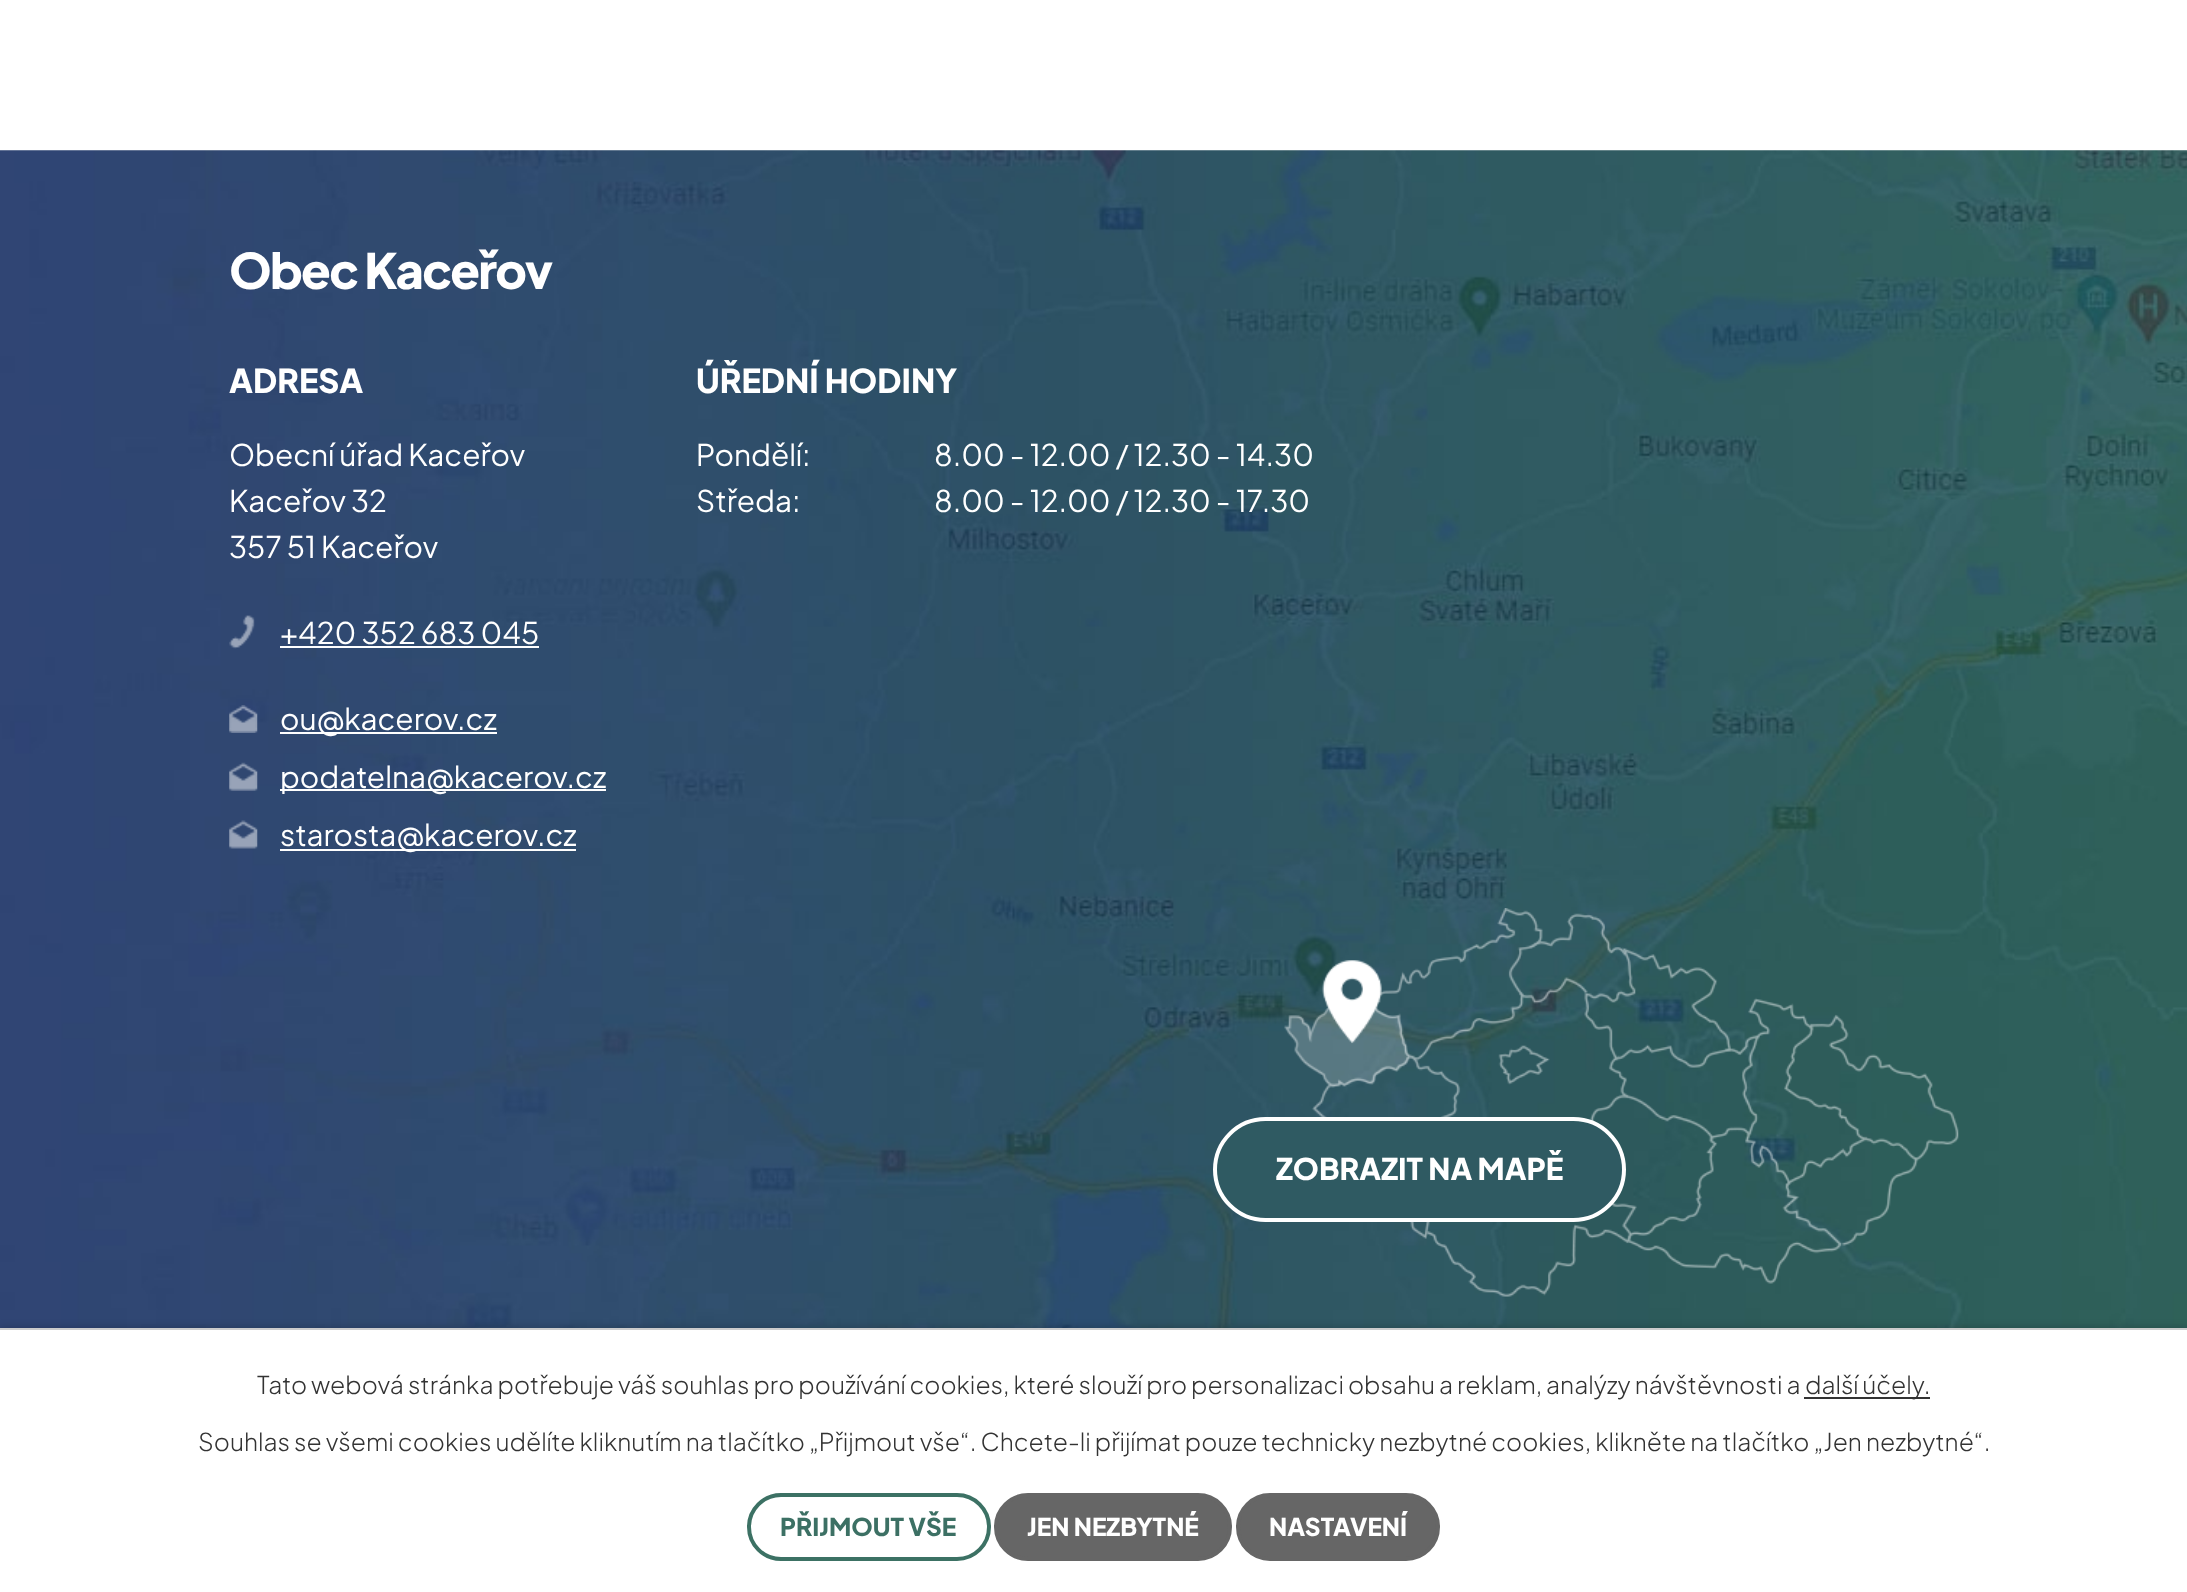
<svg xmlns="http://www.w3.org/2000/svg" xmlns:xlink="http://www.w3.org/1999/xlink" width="2187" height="1592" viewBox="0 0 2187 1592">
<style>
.cls-1{font:800 48.75px Plus Jakarta Sans;letter-spacing:-1.75px;fill:#ffffff}
.cls-2{font:800 32.75px Plus Jakarta Sans;fill:#ffffff}
.cls-3{font:29.75px Plus Jakarta Sans;fill:#ffffff}
.cls-4{font:800 29.75px Plus Jakarta Sans;fill:#ffffff}
.cls-5{font:300 24.5px Plus Jakarta Sans;fill:#333333}
.cls-6{font:800 24.5px Plus Jakarta Sans;fill:#3c7064}
.cls-7{font:800 24.5px Plus Jakarta Sans;fill:#ffffff}
</style>
<rect width="100%" height="100%" fill="#ffffff"/>
<image xlink:href="image0.png" x="0" y="150" width="2187" height="1178"/>
<image xlink:href="image1.png" x="229" y="615" width="26" height="34"/>
<rect fill="#ffffff" x="280" y="646" width="259" height="2"/>
<image xlink:href="image2.png" x="229" y="705" width="29" height="28"/>
<rect fill="#ffffff" x="280" y="732" width="217" height="2"/>
<image xlink:href="image3.png" x="229" y="762" width="29" height="29"/>
<rect fill="#ffffff" x="280" y="789" width="326" height="2"/>
<image xlink:href="image4.png" x="229" y="820" width="29" height="29"/>
<rect fill="#ffffff" x="280" y="849" width="296" height="2"/>
<image xlink:href="image5.png" x="1284" y="908" width="675" height="389"/>
<rect fill="#2f5a62" stroke="#ffffff" stroke-width="4" x="1215" y="1119" width="409" height="101" rx="50.5"/>
<rect fill="#000000" fill-opacity="0.2" filter="blur(4.5px)" x="0" y="1328" width="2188" height="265"/>
<rect fill="#ffffff" x="0" y="1330" width="2187" height="262"/>
<rect fill="#cccccc" x="0" y="1328" width="2187" height="2"/>
<rect fill="#333333" x="1804" y="1397" width="126" height="2"/>
<rect fill="none" stroke="#3c7164" stroke-width="4" x="749" y="1495" width="240" height="64" rx="32"/>
<rect fill="#666666" stroke="#666666" stroke-width="4" x="996" y="1495" width="234" height="64" rx="32"/>
<rect fill="#666666" stroke="#666666" stroke-width="4" x="1238" y="1495" width="200" height="64" rx="32"/>
<text class="cls-1" x="229" y="289">Obec Kaceřov</text>
<text class="cls-2" x="229" y="393">ADRESA</text>
<text class="cls-3"><tspan x="229" y="466">Obecní úřad Kaceřov</tspan><tspan x="229" y="512">Kaceřov 32</tspan><tspan x="229" y="558">357 51 Kaceřov</tspan></text>
<text class="cls-3" x="280" y="644">+420 352 683 045</text>
<text class="cls-3"><tspan x="280" y="730">ou@kacerov.cz</tspan><tspan x="280" y="788">podatelna@kacerov.cz</tspan><tspan x="280" y="846">starosta@kacerov.cz</tspan></text>
<text class="cls-2" x="696" y="393">ÚŘEDNÍ HODINY</text>
<text class="cls-3" x="696" y="466">Pondělí:</text>
<text class="cls-3" x="934" y="466">8.00 - 12.00 / 12.30 - 14.30</text>
<text class="cls-3" x="696" y="512">Středa:</text>
<text class="cls-3" x="934" y="512">8.00 - 12.00 / 12.30 - 17.30</text>
<text class="cls-4" x="1276" y="1180">ZOBRAZIT NA MAPĚ</text>
<text class="cls-5" x="257" y="1394">Tato webová stránka potřebuje váš souhlas pro používání cookies, které slouží pro personalizaci obsahu a reklam, analýzy návštěvnosti a</text>
<text class="cls-5" x="1805" y="1394">další účely.</text>
<text class="cls-5" x="198" y="1451">Souhlas se všemi cookies udělíte kliknutím na tlačítko „Přijmout vše“. Chcete-li přijímat pouze technicky nezbytné cookies, klikněte na tlačítko „Jen nezbytné“.</text>
<text class="cls-6" x="780" y="1536">PŘIJMOUT VŠE</text>
<text class="cls-7" x="1027" y="1536">JEN NEZBYTNÉ</text>
<text class="cls-7" x="1269" y="1536">NASTAVENÍ</text>
</svg>
